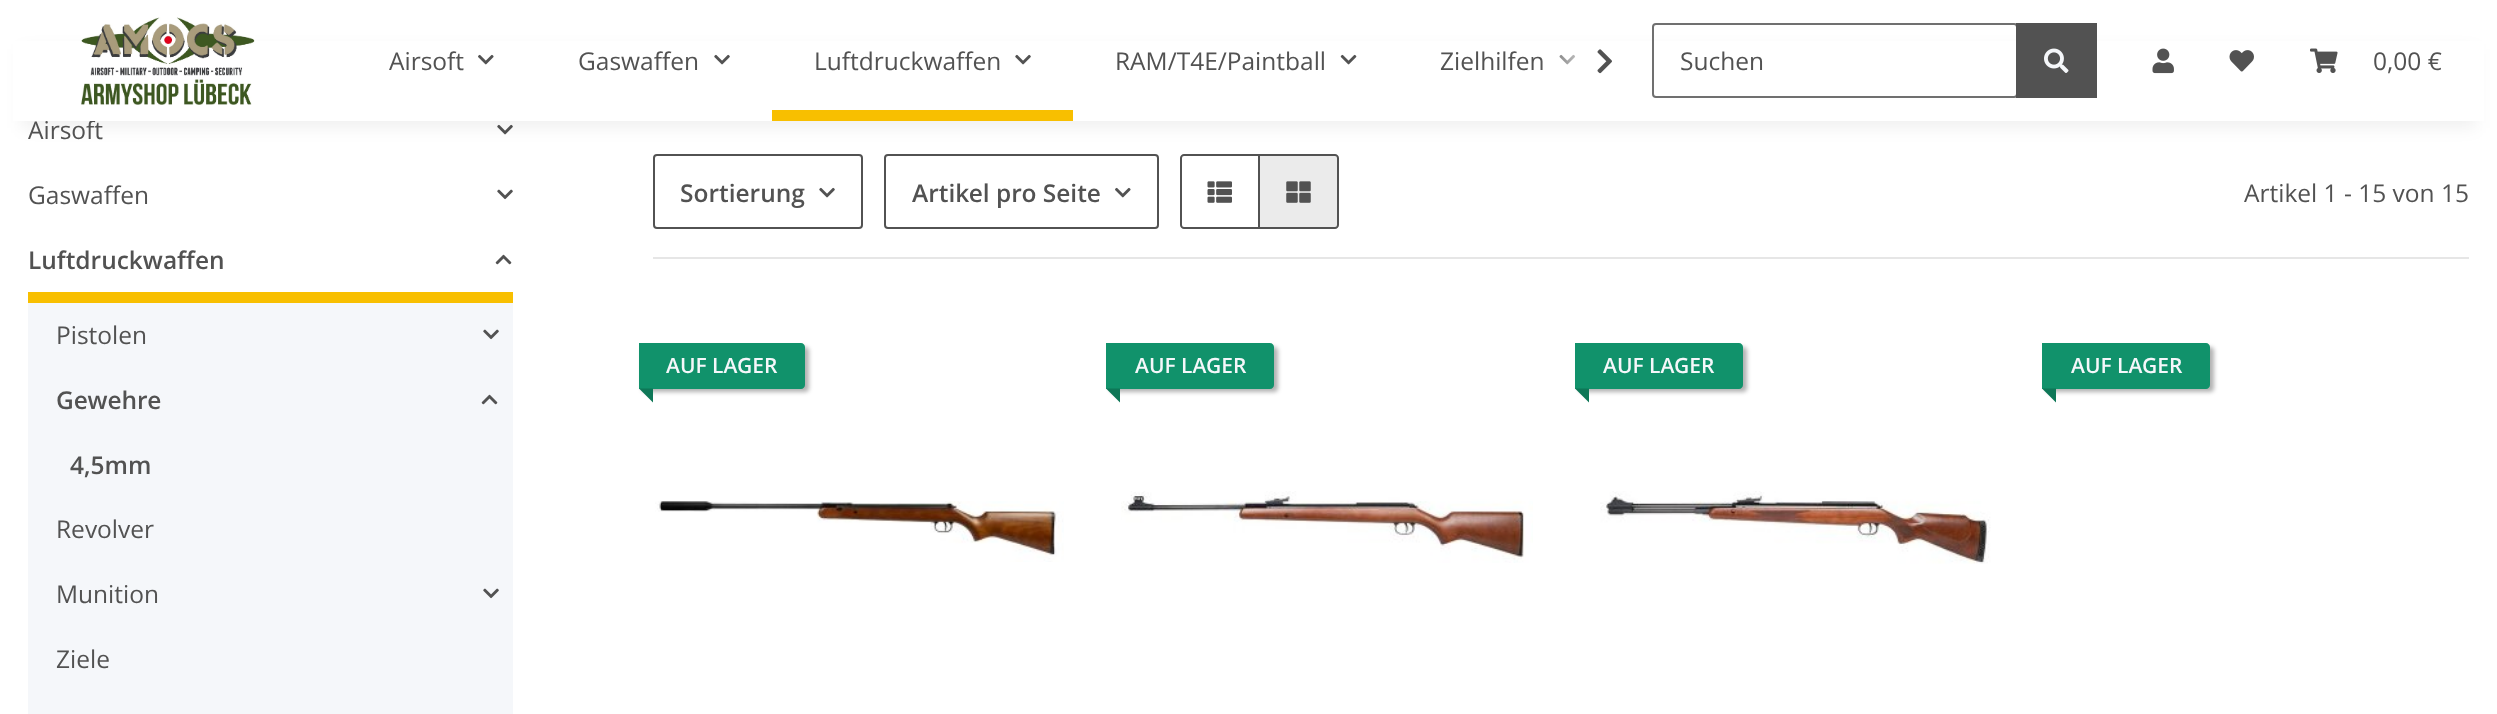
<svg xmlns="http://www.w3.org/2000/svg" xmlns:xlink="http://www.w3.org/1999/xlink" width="2497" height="714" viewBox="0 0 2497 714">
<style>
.cls-1{font:24.5px Open Sans;fill:#525252}
.cls-2{font:600 24.5px Open Sans;fill:#525252}
.cls-3{font:600 21px Open Sans;fill:#f5f7fa}
</style>
<defs>
<linearGradient id="g1" gradientUnits="userSpaceOnUse" x1="1540" y1="61" x2="1624" y2="61"><stop offset="0" stop-color="#ffffff" stop-opacity="0.01"/><stop offset="0.7" stop-color="#ffffff"/></linearGradient>
</defs>
<rect width="100%" height="100%" fill="#ffffff"/>
<image xlink:href="image2.png" x="497" y="124" width="16" height="11"/>
<rect fill="#000000" fill-opacity="0.06" filter="blur(8px)" x="21" y="49" width="2455" height="79"/>
<image xlink:href="image10.png" x="497" y="189" width="16" height="11"/>
<rect fill="#f8bf00" x="28" y="292" width="485" height="11"/>
<image xlink:href="image11.png" x="495" y="254" width="17" height="11"/>
<rect fill="#f5f7fa" x="28" y="303" width="485" height="411"/>
<image xlink:href="image12.png" x="483" y="329" width="16" height="11"/>
<image xlink:href="image13.png" x="481" y="394" width="17" height="11"/>
<image xlink:href="image12.png" x="483" y="588" width="16" height="11"/>
<rect fill="none" stroke="#525252" stroke-width="2" x="654" y="155" width="208" height="73" rx="3"/>
<image xlink:href="image2.png" x="819" y="187" width="16" height="11"/>
<rect fill="none" stroke="#525252" stroke-width="2" x="885" y="155" width="273" height="73" rx="3"/>
<image xlink:href="image1.png" x="1115" y="187" width="16" height="11"/>
<path fill="none" stroke="#525252" stroke-width="2" d="M1184 155H1259V228H1184C1182.5 228 1181 226.5 1181 225V158C1181 156.5 1182.5 155 1184 155Z"/>
<image xlink:href="image14.png" x="1207" y="181" width="25" height="22"/>
<path fill="#ebebeb" stroke="#525252" stroke-width="2" d="M1259 155H1335C1336.5 155 1338 156.5 1338 158V225C1338 226.5 1336.5 228 1335 228H1259Z"/>
<image xlink:href="image15.png" x="1286" y="181" width="25" height="22"/>
<rect fill="#e6e6e6" x="653" y="257" width="1816" height="2"/>
<rect fill="#000000" fill-opacity="0.3" filter="blur(2px)" x="642" y="347" width="167" height="45" rx="4"/>
<path fill="#11926b" d="M639 343H801C803 343 805 345 805 347V385C805 387 803 389 801 389H639Z"/>
<path fill="#0e7757" d="M653 388.5V402.5L639 388.5Z"/>
<image xlink:href="image16.png" x="655" y="501" width="409" height="61"/>
<rect fill="#000000" fill-opacity="0.3" filter="blur(2px)" x="1110" y="347" width="168" height="45" rx="4"/>
<path fill="#11926b" d="M1106 343H1270C1272 343 1274 345 1274 347V385C1274 387 1272 389 1270 389H1106Z"/>
<path fill="#0e7757" d="M1120 388.5V402.5L1106 388.5Z"/>
<image xlink:href="image17.png" x="1121" y="491" width="412" height="72"/>
<rect fill="#000000" fill-opacity="0.3" filter="blur(2px)" x="1579" y="347" width="168" height="45" rx="4"/>
<path fill="#11926b" d="M1575 343H1739C1741 343 1743 345 1743 347V385C1743 387 1741 389 1739 389H1575Z"/>
<path fill="#0e7757" d="M1589 388.5V402.5L1575 388.5Z"/>
<image xlink:href="image18.png" x="1600" y="491" width="391" height="73"/>
<rect fill="#000000" fill-opacity="0.3" filter="blur(2px)" x="2046" y="347" width="168" height="45" rx="4"/>
<path fill="#11926b" d="M2042 343H2206C2208 343 2210 345 2210 347V385C2210 387 2208 389 2206 389H2042Z"/>
<path fill="#0e7757" d="M2056 388.5V402.5L2042 388.5Z"/>
<text class="cls-1" x="28" y="139">Airsoft</text>
<rect fill="#ffffff" x="13" y="41" width="2471" height="80"/>
<rect fill="none" stroke="#707070" stroke-width="2" x="1653" y="24" width="364" height="73" rx="3"/>
<rect fill="#525252" x="2016" y="23" width="81" height="75"/>
<image xlink:href="image6.png" x="2044" y="48" width="25" height="25"/>
<image xlink:href="image5.png" x="1597" y="49" width="15" height="25"/>
<image xlink:href="image4.png" x="1559" y="54" width="17" height="11"/>
<text class="cls-1" x="1440" y="70">Zielhilfen</text>
<rect fill="url(#g1)" x="1541" y="54" width="35" height="16"/>
<image xlink:href="image3.png" x="1340" y="54" width="17" height="11"/>
<text class="cls-1" x="1115" y="70">RAM/T4E/Paintball</text>
<image xlink:href="image2.png" x="1015" y="54" width="16" height="11"/>
<rect fill="#f8bf00" x="772" y="110" width="301" height="11"/>
<text class="cls-1" x="814" y="70">Luftdruckwaffen</text>
<image xlink:href="image2.png" x="714" y="54" width="16" height="11"/>
<text class="cls-1" x="578" y="70">Gaswaffen</text>
<image xlink:href="image1.png" x="478" y="54" width="16" height="11"/>
<text class="cls-1" x="389" y="70">Airsoft</text>
<image xlink:href="image9.png" x="2310" y="48" width="28" height="25"/>
<text class="cls-1" x="2373" y="70">0,00 €</text>
<image xlink:href="image8.png" x="2229" y="50" width="25" height="22"/>
<image xlink:href="image7.png" x="2152" y="48" width="22" height="26"/>
<text class="cls-1" x="1680" y="70">Suchen</text>
<image xlink:href="image0.png" x="81" y="17" width="174" height="88"/>
<text class="cls-1" x="28" y="204">Gaswaffen</text>
<text class="cls-2" x="28" y="269">Luftdruckwaffen</text>
<text class="cls-1" x="56" y="344">Pistolen</text>
<text class="cls-2" x="56" y="409">Gewehre</text>
<text class="cls-2" x="70" y="474">4,5mm</text>
<text class="cls-1" x="56" y="538">Revolver</text>
<text class="cls-1" x="56" y="603">Munition</text>
<text class="cls-1" x="56" y="668">Ziele</text>
<text class="cls-2" x="680" y="202">Sortierung</text>
<text class="cls-2" x="912" y="202">Artikel pro Seite</text>
<text class="cls-1" x="2244" y="202">Artikel 1 - 15 von 15</text>
<text class="cls-3" x="666" y="373">AUF LAGER</text>
<text class="cls-3" x="1135" y="373">AUF LAGER</text>
<text class="cls-3" x="1603" y="373">AUF LAGER</text>
<text class="cls-3" x="2071" y="373">AUF LAGER</text>
</svg>
